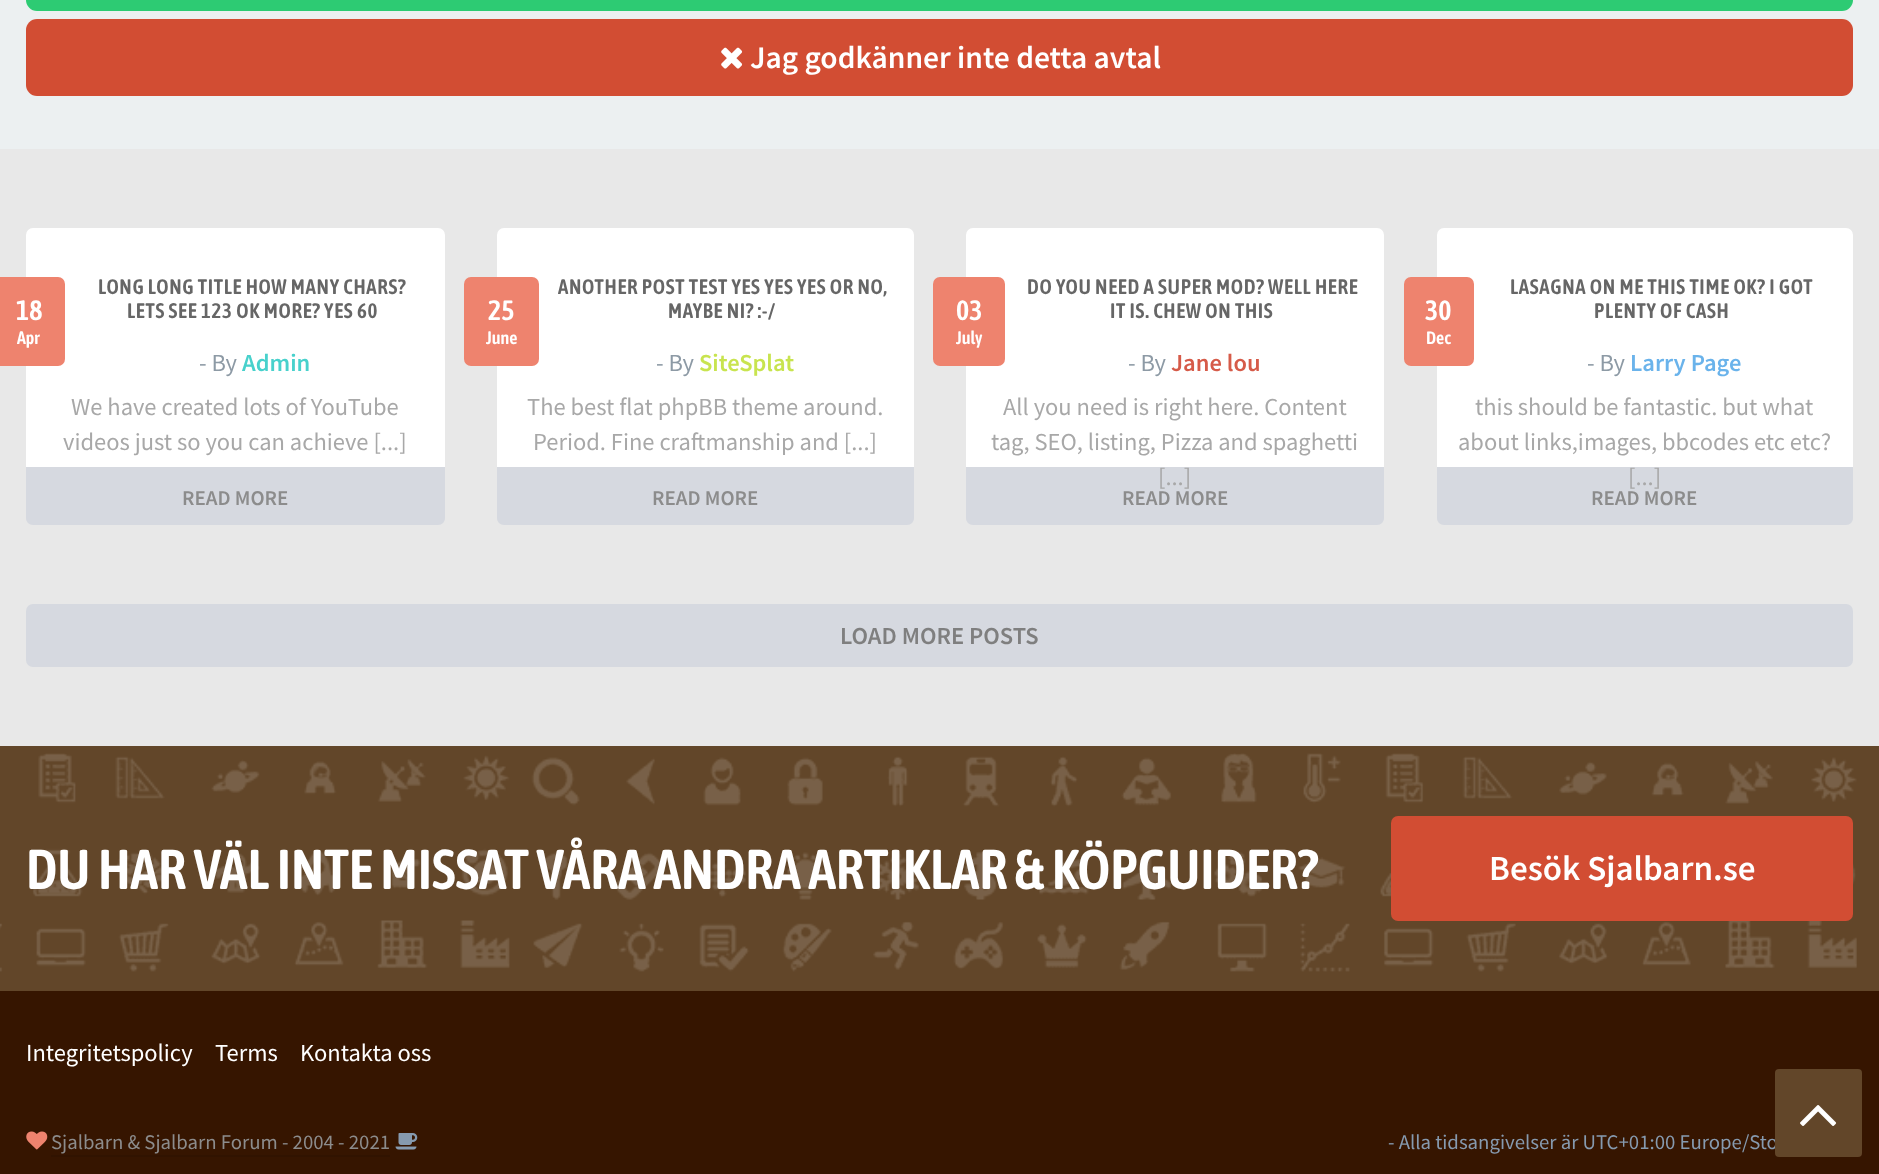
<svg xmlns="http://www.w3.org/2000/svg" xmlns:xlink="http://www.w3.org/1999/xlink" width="1879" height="1174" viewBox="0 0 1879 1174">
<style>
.cls-1{font:600 31.5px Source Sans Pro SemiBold;fill:#ffffff}
.cls-2{font:600 28px Asap Condensed;fill:#ffffff}
.cls-3{font:600 18px Asap Condensed;fill:#ffffff}
.cls-4{font:600 21px Asap Condensed;letter-spacing:0.7px;fill:#666666}
.cls-5{font:24.5px Source Sans Pro;fill:#8d9aa5}
.cls-6{font:600 24.5px Source Sans Pro SemiBold;fill:#48d1cc}
.cls-7{font:24.5px Source Sans Pro;fill:#a8a8a8}
.cls-8{font:600 21px Source Sans Pro SemiBold;fill:#8c8c8c}
.cls-9{font:600 24.5px Source Sans Pro SemiBold;fill:#c8e44f}
.cls-10{font:600 24.5px Source Sans Pro SemiBold;fill:#d65b49}
.cls-11{font:600 24.5px Source Sans Pro SemiBold;fill:#6ab3eb}
.cls-12{font:600 24.5px Source Sans Pro SemiBold;fill:#7f7f7f}
.cls-13{font:600 56px Asap Condensed;fill:#ffffff}
.cls-14{font:600 35px Source Sans Pro SemiBold;fill:#ffffff}
.cls-15{font:24.5px Source Sans Pro;fill:#ffffff}
.cls-16{font:20.8px Source Sans Pro;fill:#8c8c8c}
.cls-17{font:20.8px Source Sans Pro;fill:#869aaf}
</style>
<rect width="100%" height="100%" fill="#ecf0f1"/>
<rect fill="#2dcb73" x="26" y="-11" width="1827" height="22" rx="11"/>
<rect fill="#d24d33" x="26" y="19" width="1827" height="77" rx="11"/>
<image xlink:href="image0.png" x="721" y="47" width="22" height="22"/>
<rect fill="#e8e8e8" x="0" y="149" width="1879" height="597"/>
<rect fill="#ffffff" x="26" y="228" width="419" height="280" rx="7"/>
<rect fill="#ee836e" x="-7" y="277" width="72" height="89" rx="7"/>
<path fill="#d6d9e0" d="M26 467H445V518C445 522 442 525 438 525H33C29 525 26 522 26 518Z"/>
<rect fill="#ffffff" x="497" y="228" width="417" height="280" rx="7"/>
<rect fill="#ee836e" x="464" y="277" width="75" height="89" rx="7"/>
<path fill="#d6d9e0" d="M497 467H914V518C914 522 911 525 907 525H504C500 525 497 522 497 518Z"/>
<rect fill="#ffffff" x="966" y="228" width="418" height="280" rx="7"/>
<rect fill="#ee836e" x="933" y="277" width="72" height="89" rx="7"/>
<path fill="#d6d9e0" d="M966 467H1384V518C1384 522 1381 525 1377 525H973C969 525 966 522 966 518Z"/>
<rect fill="#ffffff" x="1437" y="228" width="416" height="280" rx="7"/>
<rect fill="#ee836e" x="1404" y="277" width="70" height="89" rx="7"/>
<path fill="#d6d9e0" d="M1437 467H1853V518C1853 522 1850 525 1846 525H1444C1440 525 1437 522 1437 518Z"/>
<rect fill="#d6d9e0" x="26" y="604" width="1827" height="63" rx="7"/>
<rect fill="#624629" x="0" y="746" width="1879" height="245"/>
<image xlink:href="image1.png" x="0" y="753" width="1857" height="219"/>
<rect fill="#d24d33" x="1391" y="816" width="462" height="105" rx="7"/>
<rect fill="#361500" x="0" y="991" width="1879" height="183"/>
<image xlink:href="image2.png" x="26" y="1131" width="22" height="19"/>
<rect fill="#311300" x="51" y="1155" width="339" height="2"/>
<image xlink:href="image3.png" x="395" y="1133" width="23" height="17"/>
<text class="cls-1" x="750" y="68">Jag godkänner inte detta avtal</text>
<text class="cls-2" x="16" y="320">18</text>
<text class="cls-3" x="17" y="344">Apr</text>
<text class="cls-4" x="98" y="294">LONG LONG TITLE HOW MANY CHARS?</text>
<text class="cls-4" x="127" y="318">LETS SEE 123 OK MORE? YES 60</text>
<text class="cls-5" x="199" y="371">- By</text>
<text class="cls-6" x="242" y="371">Admin</text>
<text class="cls-7" x="71" y="415">We have created lots of YouTube</text>
<text class="cls-7" x="63" y="450">videos just so you can achieve [...]</text>
<text class="cls-8" x="182" y="505">READ MORE</text>
<text class="cls-2" x="488" y="320">25</text>
<text class="cls-3" x="486" y="344">June</text>
<text class="cls-4" x="558" y="294">ANOTHER POST TEST YES YES YES OR NO,</text>
<text class="cls-4" x="668" y="318">MAYBE NI? :-/</text>
<text class="cls-5" x="656" y="371">- By</text>
<text class="cls-9" x="699" y="371">SiteSplat</text>
<text class="cls-7" x="527" y="415">The best flat phpBB theme around.</text>
<text class="cls-7" x="533" y="450">Period. Fine craftmanship and [...]</text>
<text class="cls-8" x="652" y="505">READ MORE</text>
<text class="cls-2" x="956" y="320">03</text>
<text class="cls-3" x="956" y="344">July</text>
<text class="cls-4" x="1027" y="294">DO YOU NEED A SUPER MOD? WELL HERE</text>
<text class="cls-4" x="1110" y="318">IT IS. CHEW ON THIS</text>
<text class="cls-5" x="1128" y="371">- By</text>
<text class="cls-10" x="1171" y="371">Jane lou</text>
<text class="cls-7" x="1003" y="415">All you need is right here. Content</text>
<text class="cls-7" x="991" y="450">tag, SEO, listing, Pizza and spaghetti</text>
<text class="cls-7" x="1158" y="485">[...]</text>
<text class="cls-8" x="1122" y="505">READ MORE</text>
<text class="cls-2" x="1425" y="320">30</text>
<text class="cls-3" x="1426" y="344">Dec</text>
<text class="cls-4" x="1510" y="294">LASAGNA ON ME THIS TIME OK? I GOT</text>
<text class="cls-4" x="1594" y="318">PLENTY OF CASH</text>
<text class="cls-5" x="1587" y="371">- By</text>
<text class="cls-11" x="1630" y="371">Larry Page</text>
<text class="cls-7" x="1475" y="415">this should be fantastic. but what</text>
<text class="cls-7" x="1458" y="450">about links,images, bbcodes etc etc?</text>
<text class="cls-7" x="1628" y="485">[...]</text>
<text class="cls-8" x="1591" y="505">READ MORE</text>
<text class="cls-12" x="840" y="644">LOAD MORE POSTS</text>
<text class="cls-13" x="26" y="889">DU HAR VÄL INTE MISSAT VÅRA ANDRA ARTIKLAR &amp; KÖPGUIDER?</text>
<text class="cls-14" x="1489" y="880">Besök Sjalbarn.se</text>
<text class="cls-15" x="26" y="1061">Integritetspolicy</text>
<text class="cls-15" x="215" y="1061">Terms</text>
<text class="cls-15" x="300" y="1061">Kontakta oss</text>
<text class="cls-16" x="51" y="1149">Sjalbarn &amp; Sjalbarn Forum - 2004 - 2021</text>
<text class="cls-17" x="1388" y="1149">- Alla tidsangivelser är UTC+01:00 Europe/Sto</text>
<rect fill="#624629" x="1775" y="1069" width="87" height="88" rx="4"/>
<image xlink:href="image4.png" x="1800" y="1105" width="37" height="21"/>
</svg>
